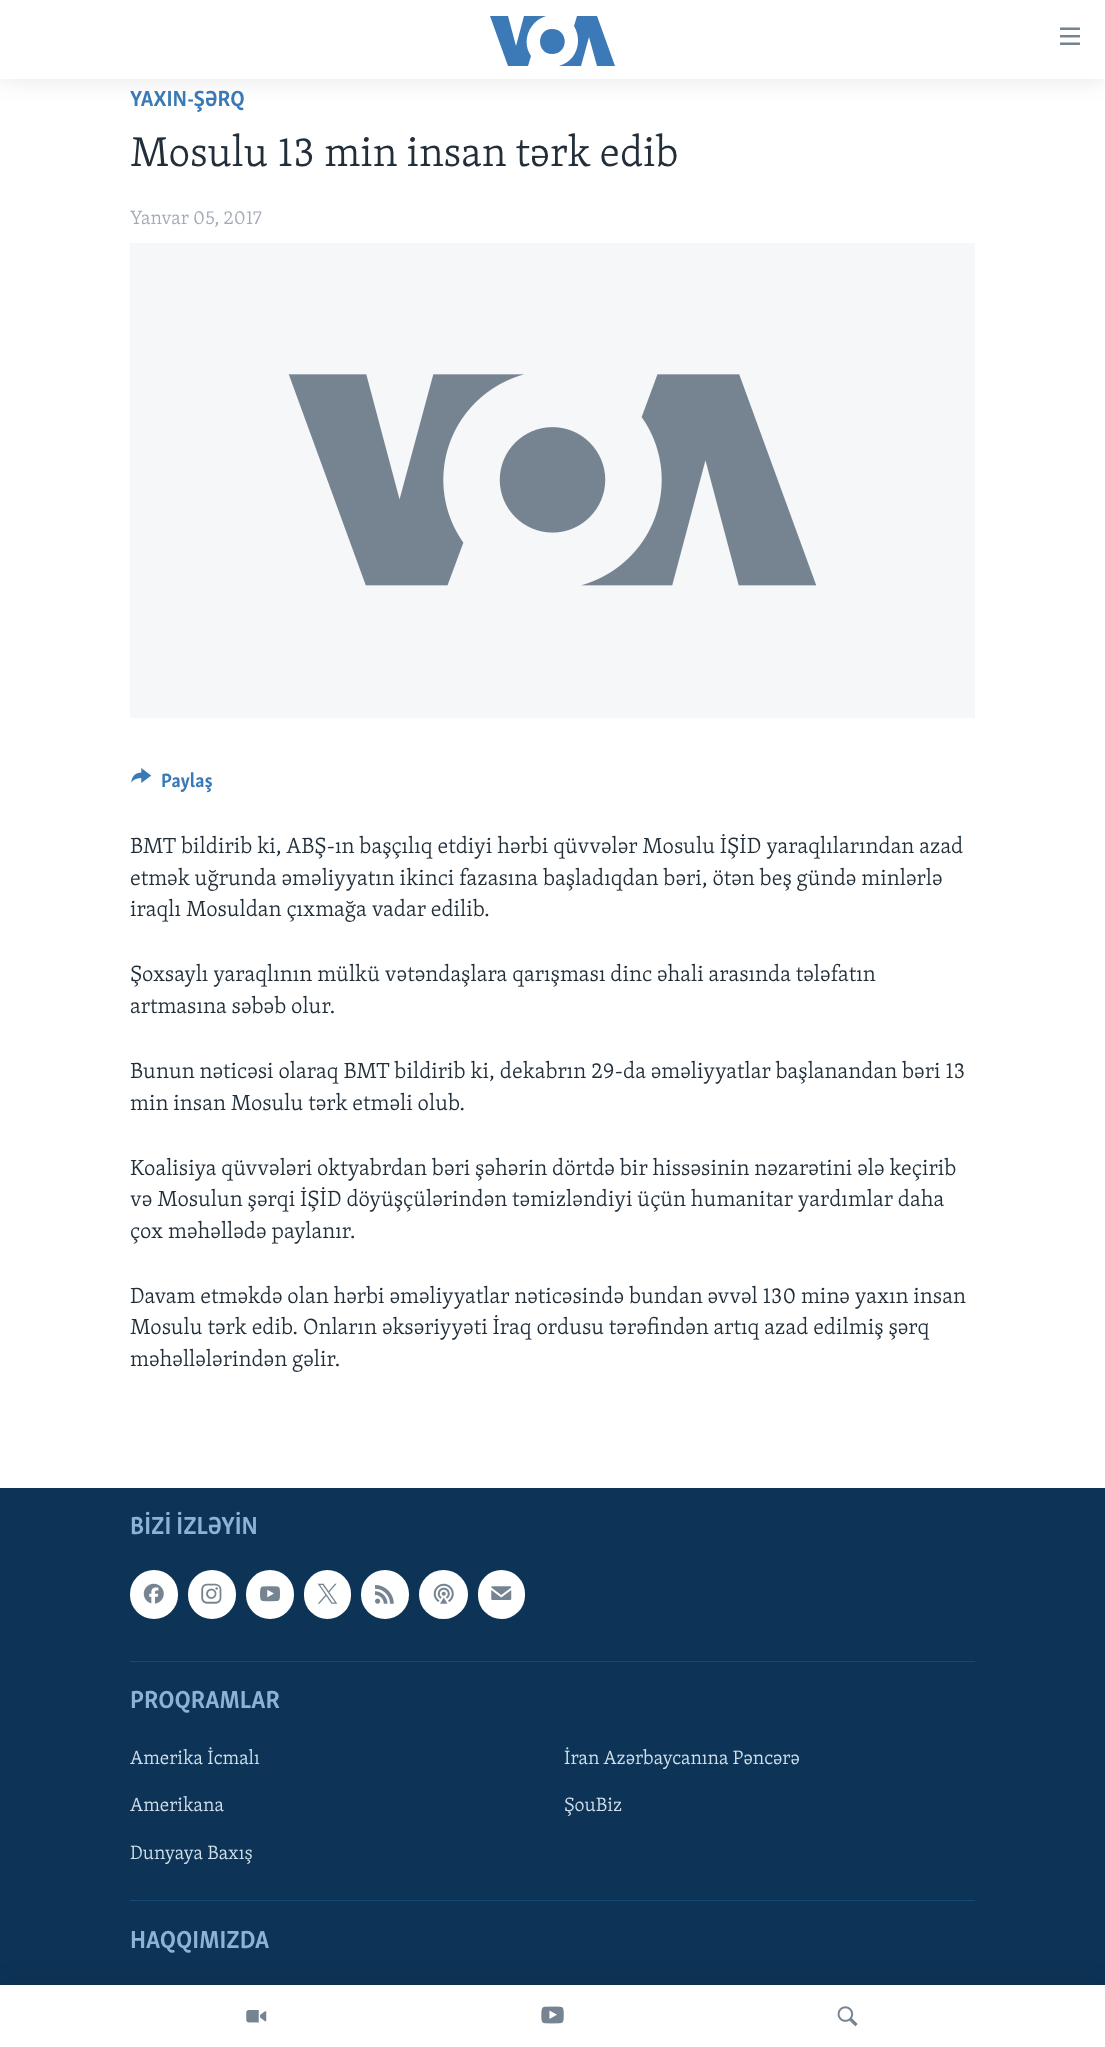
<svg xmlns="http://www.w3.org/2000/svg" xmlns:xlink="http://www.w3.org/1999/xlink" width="1105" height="2047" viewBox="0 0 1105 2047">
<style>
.cls-1{font:bold 22.5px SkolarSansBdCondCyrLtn;fill:#3a79b7}
.cls-2{font:300 42.75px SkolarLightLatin;fill:#222f3a}
.cls-3{font:300 19.75px SkolarLightLatin;fill:#a1aab4}
.cls-4{font:bold 19.75px SkolarSansBdCondCyrLtn;fill:#3a79b7}
.cls-5{font:300 22.5px SkolarLightLatin;fill:#222f3a}
.cls-6{font:bold 25.25px SkolarSansBdCondCyrLtn;fill:#8db3d4}
.cls-7{font:300 19.75px SkolarLightLatin;fill:#d1e1ee}
</style>
<rect width="100%" height="100%" fill="#ffffff"/>
<rect fill="#000000" fill-opacity="0.1" filter="blur(12.5px)" x="0" y="0" width="1105" height="79"/>
<rect fill="#ffffff" x="0" y="0" width="1105" height="79"/>
<path fill="#3b79b7" d="M531 56L528 66H508L490 16H508L516 46L524 16H546C529 21 521 42 531 56ZM552 29C536 29 536 54 552 54C569 54 569 29 552 29ZM578 41C578 53 570 63 559 66H581L589 37L597 66H615L597 16H577L574 26C577 31 578 36 578 41Z"/>
<image xlink:href="image0.png" x="1060" y="27" width="20" height="18"/>
<rect fill="#0d3456" x="0" y="1488" width="1105" height="497"/>
<rect fill="#000000" fill-opacity="0.1" filter="blur(12.5px)" x="0" y="1985" width="1105" height="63"/>
<rect fill="#ffffff" x="0" y="1985" width="1105" height="62"/>
<image xlink:href="image1.png" x="246" y="2010" width="21" height="13"/>
<image xlink:href="image2.png" x="541" y="2006" width="23" height="18"/>
<image xlink:href="image3.png" x="837" y="2006" width="21" height="21"/>
<rect fill="#f6f7f8" x="130" y="243" width="845" height="475"/>
<image xlink:href="image4.png" x="288" y="374" width="529" height="212"/>
<image xlink:href="image5.png" x="131" y="768" width="21" height="15"/>
<rect fill="#ffffff" x="130" y="1570" width="48" height="49" rx="24"/>
<image xlink:href="image6.png" x="143" y="1583" width="21" height="21"/>
<rect fill="#ffffff" x="188" y="1570" width="48" height="49" rx="24"/>
<image xlink:href="image7.png" x="201" y="1583" width="21" height="21"/>
<rect fill="#ffffff" x="246" y="1570" width="48" height="49" rx="24"/>
<image xlink:href="image8.png" x="260" y="1586" width="20" height="16"/>
<rect fill="#ffffff" x="304" y="1570" width="47" height="49" rx="23.5"/>
<image xlink:href="image9.png" x="317" y="1583" width="21" height="21"/>
<rect fill="#ffffff" x="361" y="1570" width="48" height="49" rx="24"/>
<image xlink:href="image10.png" x="375" y="1585" width="19" height="19"/>
<circle fill="#ffffff" cx="443.5" cy="1594.5" r="24.5"/>
<image xlink:href="image11.png" x="433" y="1583" width="21" height="21"/>
<rect fill="#ffffff" x="478" y="1570" width="47" height="49" rx="23.5"/>
<image xlink:href="image12.png" x="491" y="1586" width="21" height="14"/>
<rect fill="#134976" x="130" y="1661" width="845" height="1"/>
<rect fill="#134976" x="130" y="1900" width="845" height="1"/>
<text class="cls-1" x="130" y="106">YAXIN-ŞƏRQ</text>
<text class="cls-2" x="130" y="166">Mosulu 13 min insan tərk edib</text>
<text class="cls-3" x="130" y="224">Yanvar 05, 2017</text>
<text class="cls-4" x="161" y="787">Paylaş</text>
<text class="cls-5"><tspan x="130" y="853">BMT bildirib ki, ABŞ-ın başçılıq etdiyi hərbi qüvvələr Mosulu İŞİD yaraqlılarından azad</tspan><tspan x="130" y="885">etmək uğrunda əməliyyatın ikinci fazasına başladıqdan bəri, ötən beş gündə minlərlə</tspan><tspan x="130" y="916">iraqlı Mosuldan çıxmağa vadar edilib.</tspan></text>
<text class="cls-5"><tspan x="130" y="981">Şoxsaylı yaraqlının mülkü vətəndaşlara qarışması dinc əhali arasında tələfatın</tspan><tspan x="130" y="1013">artmasına səbəb olur.</tspan></text>
<text class="cls-5"><tspan x="130" y="1078">Bunun nəticəsi olaraq BMT bildirib ki, dekabrın 29-da əməliyyatlar başlanandan bəri 13</tspan><tspan x="130" y="1110">min insan Mosulu tərk etməli olub.</tspan></text>
<text class="cls-5"><tspan x="130" y="1175">Koalisiya qüvvələri oktyabrdan bəri şəhərin dörtdə bir hissəsinin nəzarətini ələ keçirib</tspan><tspan x="130" y="1206">və Mosulun şərqi İŞİD döyüşçülərindən təmizləndiyi üçün humanitar yardımlar daha</tspan><tspan x="130" y="1238">çox məhəllədə paylanır.</tspan></text>
<text class="cls-5"><tspan x="130" y="1303">Davam etməkdə olan hərbi əməliyyatlar nəticəsində bundan əvvəl 130 minə yaxın insan</tspan><tspan x="130" y="1334">Mosulu tərk edib. Onların əksəriyyəti İraq ordusu tərəfindən artıq azad edilmiş şərq</tspan><tspan x="130" y="1366">məhəllələrindən gəlir.</tspan></text>
<text class="cls-6" x="130" y="1534">BİZİ İZLƏYİN</text>
<text class="cls-6" x="130" y="1708">PROQRAMLAR</text>
<text class="cls-7" x="130" y="1764">Amerika İcmalı</text>
<text class="cls-7" x="564" y="1764">İran Azərbaycanına Pəncərə</text>
<text class="cls-7" x="130" y="1811">Amerikana</text>
<text class="cls-7" x="564" y="1811">ŞouBiz</text>
<text class="cls-7" x="130" y="1859">Dunyaya Baxış</text>
<text class="cls-6" x="130" y="1948">HAQQIMIZDA</text>
</svg>
